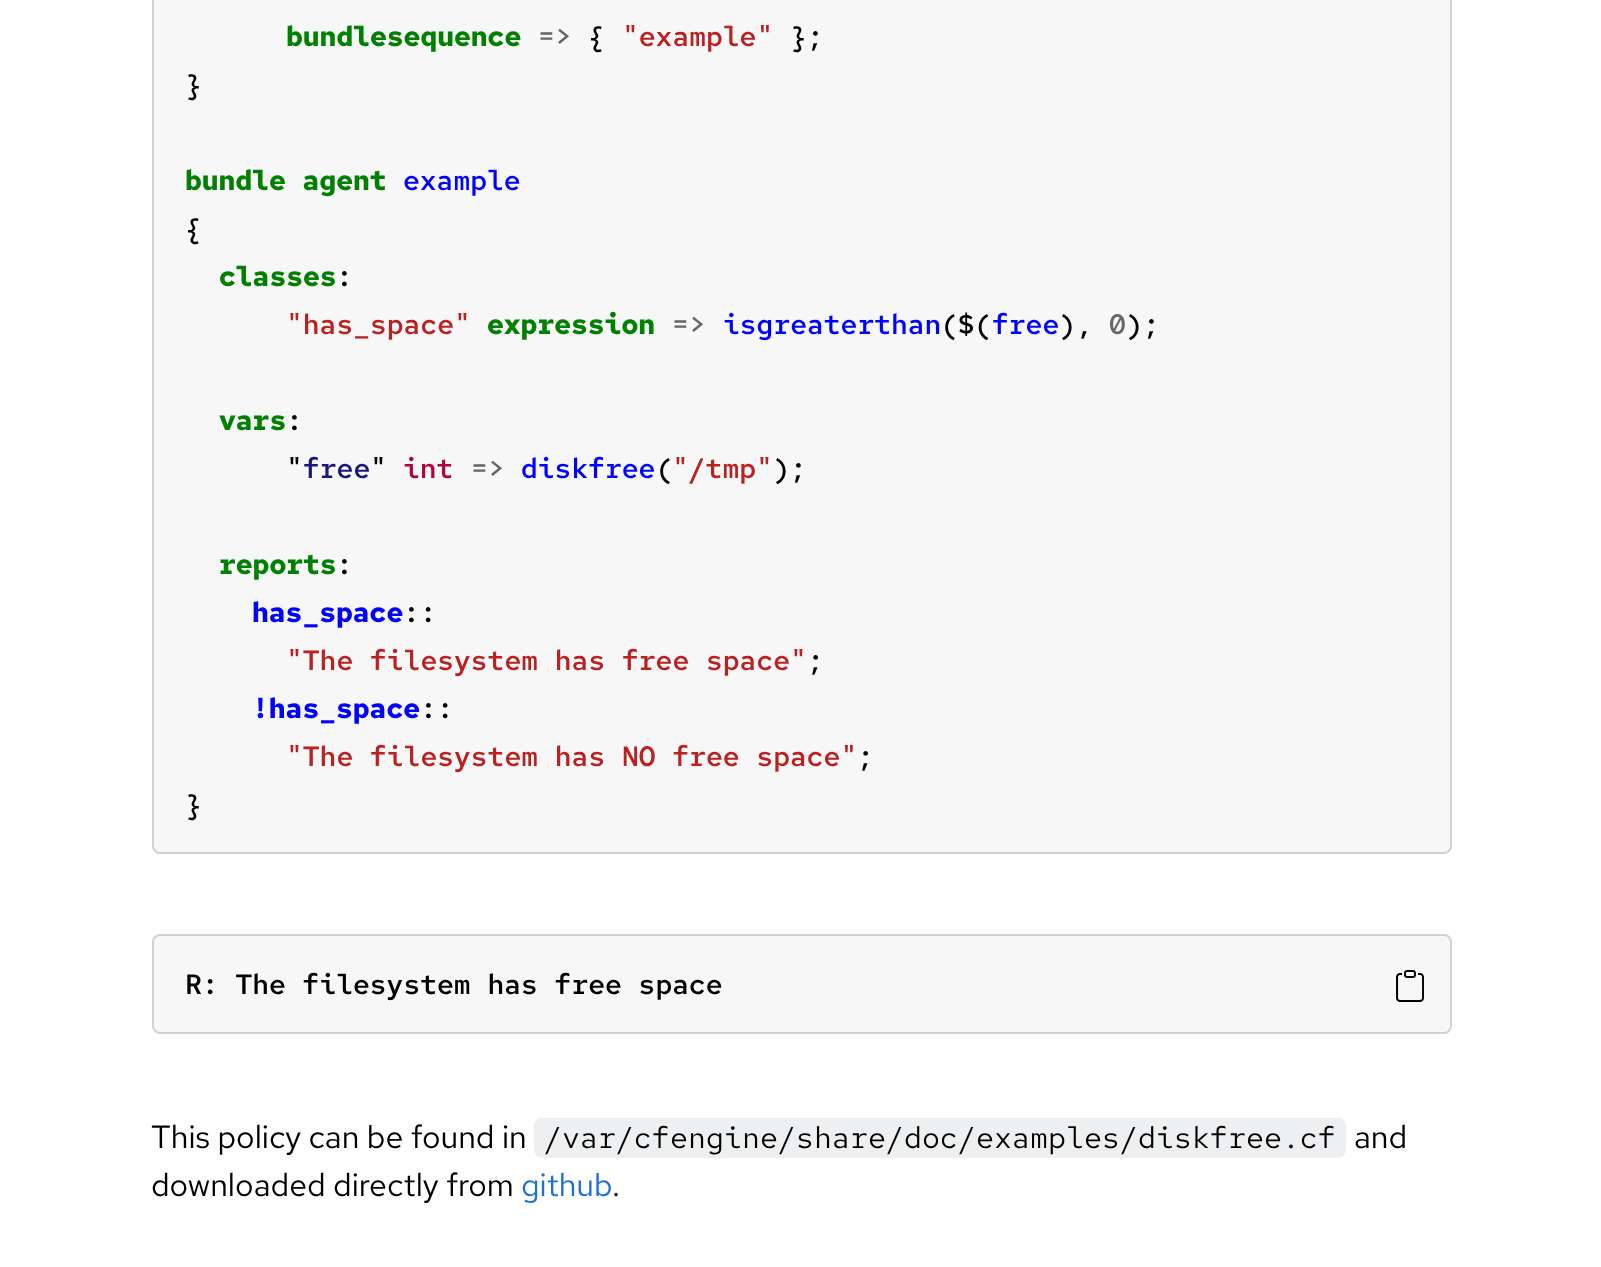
<svg xmlns="http://www.w3.org/2000/svg" xmlns:xlink="http://www.w3.org/1999/xlink" width="1601" height="1267" viewBox="0 0 1601 1267">
<style>
.cls-1{font:bold 28px Red Hat Mono;fill:#008000}
.cls-2{font:500 28px Red Hat Mono;fill:#666666}
.cls-3{font:500 28px Red Hat Mono;fill:#000000}
.cls-4{font:500 28px Red Hat Mono;fill:#ba2121}
.cls-5{font:500 28px Red Hat Mono;fill:#0000ff}
.cls-6{font:500 28px Red Hat Mono;fill:#19177c}
.cls-7{font:500 28px Red Hat Mono;fill:#b00040}
.cls-8{font:bold 28px Red Hat Mono;fill:#0000ff}
.cls-9{font:32px Red Hat Text;fill:#000000}
.cls-10{font:30px Red Hat Mono;fill:#000000}
.cls-11{font:32px Red Hat Text;fill:#1d71d3}
</style>
<rect width="100%" height="100%" fill="#ffffff"/>
<rect fill="#f7f7f7" stroke="#d1d2d3" stroke-width="2" x="153" y="-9" width="1298" height="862" rx="7"/>
<rect fill="#f7f7f7" stroke="#d1d2d3" stroke-width="2" x="153" y="935" width="1298" height="98" rx="7"/>
<image xlink:href="image0.png" x="1396" y="970" width="28" height="32"/>
<rect fill="#eeeff0" x="534" y="1118" width="812" height="40" rx="8"/>
<text class="cls-1" x="286" y="46">bundlesequence</text>
<text class="cls-2" x="538" y="46">=&gt;</text>
<text class="cls-3" x="588" y="46">{</text>
<text class="cls-4" x="622" y="46">"example"</text>
<text class="cls-3" x="790" y="46">};</text>
<text class="cls-3" x="185" y="94">}</text>
<text class="cls-1" x="185" y="190">bundle agent</text>
<text class="cls-5" x="403" y="190">example</text>
<text class="cls-3" x="185" y="238">{</text>
<text class="cls-1" x="219" y="286">classes</text>
<text class="cls-3" x="336" y="286">:</text>
<text class="cls-4" x="286" y="334">"has_space"</text>
<text class="cls-1" x="487" y="334">expression</text>
<text class="cls-2" x="672" y="334">=&gt;</text>
<text class="cls-5" x="723" y="334">isgreaterthan</text>
<text class="cls-3" x="941" y="334">($(</text>
<text class="cls-5" x="992" y="334">free</text>
<text class="cls-3" x="1059" y="334">),</text>
<text class="cls-2" x="1109" y="334">0</text>
<text class="cls-3" x="1126" y="334">);</text>
<text class="cls-1" x="219" y="430">vars</text>
<text class="cls-3"><tspan x="286" y="430">:</tspan><tspan x="286" y="478">"</tspan></text>
<text class="cls-6" x="303" y="478">free</text>
<text class="cls-3" x="370" y="478">"</text>
<text class="cls-7" x="403" y="478">int</text>
<text class="cls-2" x="471" y="478">=&gt;</text>
<text class="cls-5" x="521" y="478">diskfree</text>
<text class="cls-3" x="656" y="478">(</text>
<text class="cls-4" x="672" y="478">"/tmp"</text>
<text class="cls-3" x="773" y="478">);</text>
<text class="cls-1" x="219" y="574">reports</text>
<text class="cls-3" x="336" y="574">:</text>
<text class="cls-8" x="252" y="622">has_space</text>
<text class="cls-3" x="403" y="622">::</text>
<text class="cls-4" x="286" y="670">"The filesystem has free space"</text>
<text class="cls-3" x="807" y="670">;</text>
<text class="cls-8" x="252" y="718">!has_space</text>
<text class="cls-3" x="420" y="718">::</text>
<text class="cls-4" x="286" y="766">"The filesystem has NO free space"</text>
<text class="cls-3" x="857" y="766">;</text>
<text class="cls-3" x="185" y="814">}</text>
<text class="cls-3" x="185" y="994">R: The filesystem has free space</text>
<text class="cls-9" x="151" y="1148">This policy can be found in</text>
<text class="cls-10" x="544" y="1148">/var/cfengine/share/doc/examples/diskfree.cf</text>
<text class="cls-9" x="1354" y="1148">and</text>
<text class="cls-9" x="151" y="1196">downloaded directly from</text>
<text class="cls-11" x="521" y="1196">github</text>
<text class="cls-9" x="612" y="1196">.</text>
</svg>
